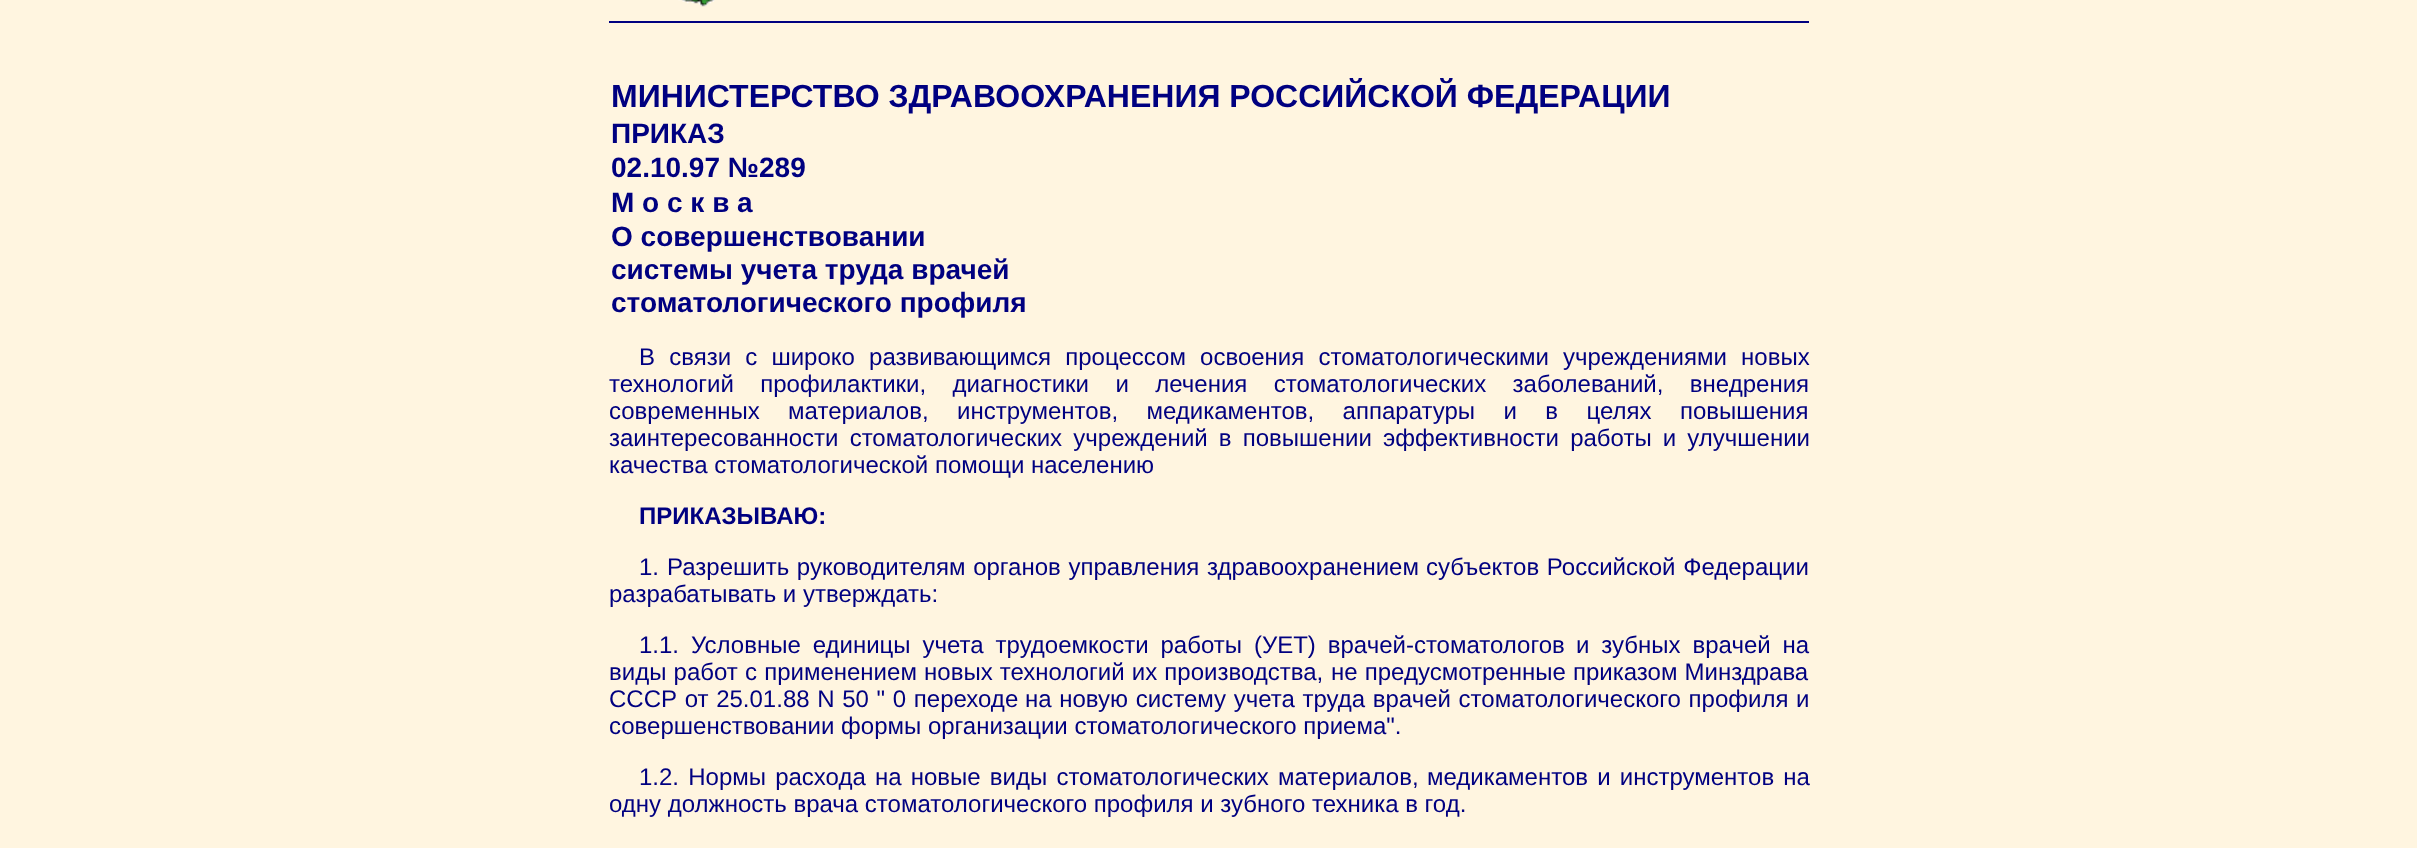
<svg xmlns="http://www.w3.org/2000/svg" xmlns:xlink="http://www.w3.org/1999/xlink" width="2417" height="848" viewBox="0 0 2417 848">
<style>
.cls-1{font:bold 32px Liberation Sans;fill:#000080}
.cls-2{font:bold 28px Liberation Sans;fill:#000080}
.cls-3{font:24px Liberation Sans;fill:#000080}
.cls-4{font:bold 24px Liberation Sans;fill:#000080}
</style>
<rect width="100%" height="100%" fill="#fff5e0"/>
<rect fill="#000080" x="609" y="21" width="1200" height="2"/>
<image xlink:href="image0.png" x="678" y="0" width="37" height="7"/>
<text class="cls-1" x="611" y="107">МИНИСТЕРСТВО ЗДРАВООХРАНЕНИЯ РОССИЙСКОЙ ФЕДЕРАЦИИ</text>
<text class="cls-2"><tspan x="611" y="143">ПРИКАЗ</tspan><tspan x="611" y="177">02.10.97 №289</tspan><tspan x="611" y="212">М о с к в а</tspan><tspan x="611" y="246">О совершенствовании</tspan><tspan x="611" y="279">системы учета труда врачей</tspan><tspan x="611" y="312">стоматологического профиля</tspan></text>
<text class="cls-3" x="639" y="365" word-spacing="7.5">В связи с широко развивающимся процессом освоения стоматологическими учреждениями новых</text>
<text class="cls-3"><tspan x="609" y="392" word-spacing="19.75">технологий профилактики, диагностики и лечения стоматологических заболеваний, внедрения</tspan><tspan x="609" y="419" word-spacing="21.75">современных материалов, инструментов, медикаментов, аппаратуры и в целях повышения</tspan><tspan x="609" y="446" word-spacing="4.5">заинтересованности стоматологических учреждений в повышении эффективности работы и улучшении</tspan><tspan x="609" y="473">качества стоматологической помощи населению</tspan></text>
<text class="cls-4" x="639" y="524">ПРИКАЗЫВАЮ:</text>
<text class="cls-3" x="639" y="575">1.</text>
<text class="cls-3" x="667" y="575" word-spacing="1">Разрешить руководителям органов управления здравоохранением</text>
<text class="cls-3" x="1426" y="575" word-spacing="1">субъектов Российской Федерации</text>
<text class="cls-3" x="609" y="602">разрабатывать и утверждать:</text>
<text class="cls-3" x="639" y="653" word-spacing="5.25">1.1. Условные единицы учета трудоемкости работы (УЕТ) врачей-стоматологов</text>
<text class="cls-3" x="1576" y="653" word-spacing="5.25">и зубных врачей на</text>
<text class="cls-3" x="609" y="680" word-spacing="0.5">виды работ с применением новых технологий их производства,</text>
<text class="cls-3" x="1331" y="680" word-spacing="0.5">не предусмотренные приказом Минздрава</text>
<text class="cls-3" x="609" y="707" word-spacing="1">СССР от 25.01.88 N 50 " 0 переходе</text>
<text class="cls-3" x="1025" y="707" word-spacing="1">на новую систему учета труда врачей стоматологического профиля и</text>
<text class="cls-3" x="609" y="734">совершенствовании формы организации стоматологического приема".</text>
<text class="cls-3" x="639" y="785" word-spacing="2.5">1.2. Нормы расхода на новые виды стоматологических материалов,</text>
<text class="cls-3" x="1427" y="785" word-spacing="2.5">медикаментов и инструментов на</text>
<text class="cls-3" x="609" y="812">одну должность врача стоматологического профиля и зубного техника в год.</text>
</svg>
